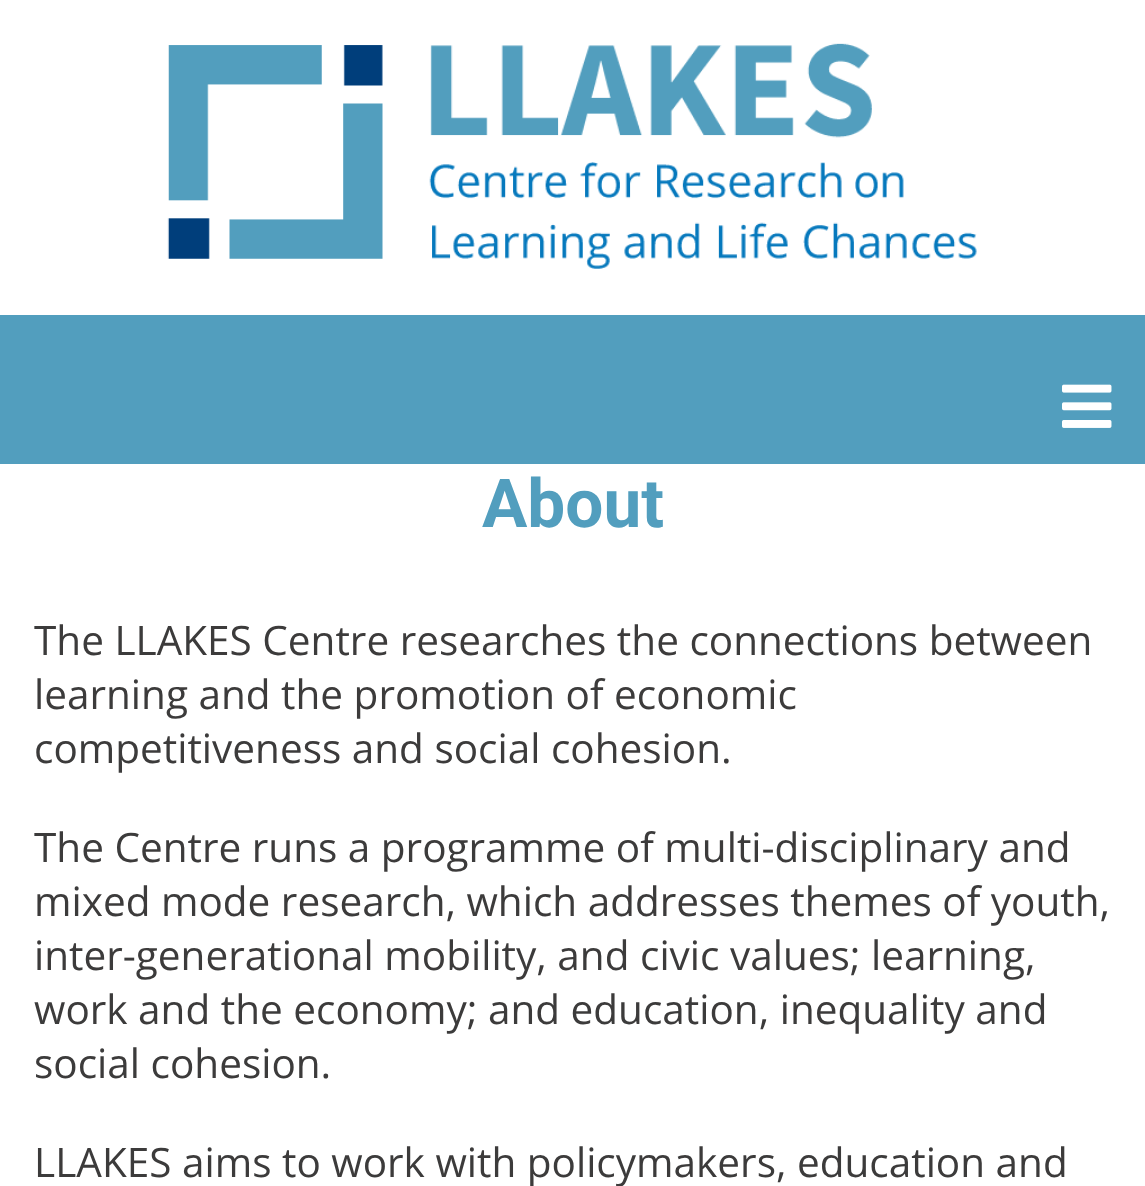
<svg xmlns="http://www.w3.org/2000/svg" xmlns:xlink="http://www.w3.org/1999/xlink" width="1145" height="1186" viewBox="0 0 1145 1186">
<style>
.cls-1{font:bold 67.5px Roboto;fill:#529ebe}
.cls-2{font:40.5px Open Sans;fill:#3c3b3b}
</style>
<rect width="100%" height="100%" fill="#ffffff"/>
<rect fill="#529ebe" x="0" y="315" width="1145" height="149"/>
<image xlink:href="image0.png" x="167" y="43" width="810" height="226"/>
<image xlink:href="image1.png" x="1062" y="384" width="50" height="44"/>
<text class="cls-1" x="482" y="527">About</text>
<text class="cls-2"><tspan x="34" y="655">The LLAKES Centre researches the connections between</tspan><tspan x="34" y="709">learning and the promotion of economic</tspan><tspan x="34" y="763">competitiveness and social cohesion.</tspan></text>
<text class="cls-2"><tspan x="34" y="862">The Centre runs a programme of multi-disciplinary and</tspan><tspan x="34" y="916">mixed mode research, which addresses themes of youth,</tspan><tspan x="34" y="970">inter-generational mobility, and civic values; learning,</tspan><tspan x="34" y="1024">work and the economy; and education, inequality and</tspan><tspan x="34" y="1078">social cohesion.</tspan></text>
<text class="cls-2" x="34" y="1177">LLAKES aims to work with policymakers, education and</text>
</svg>
